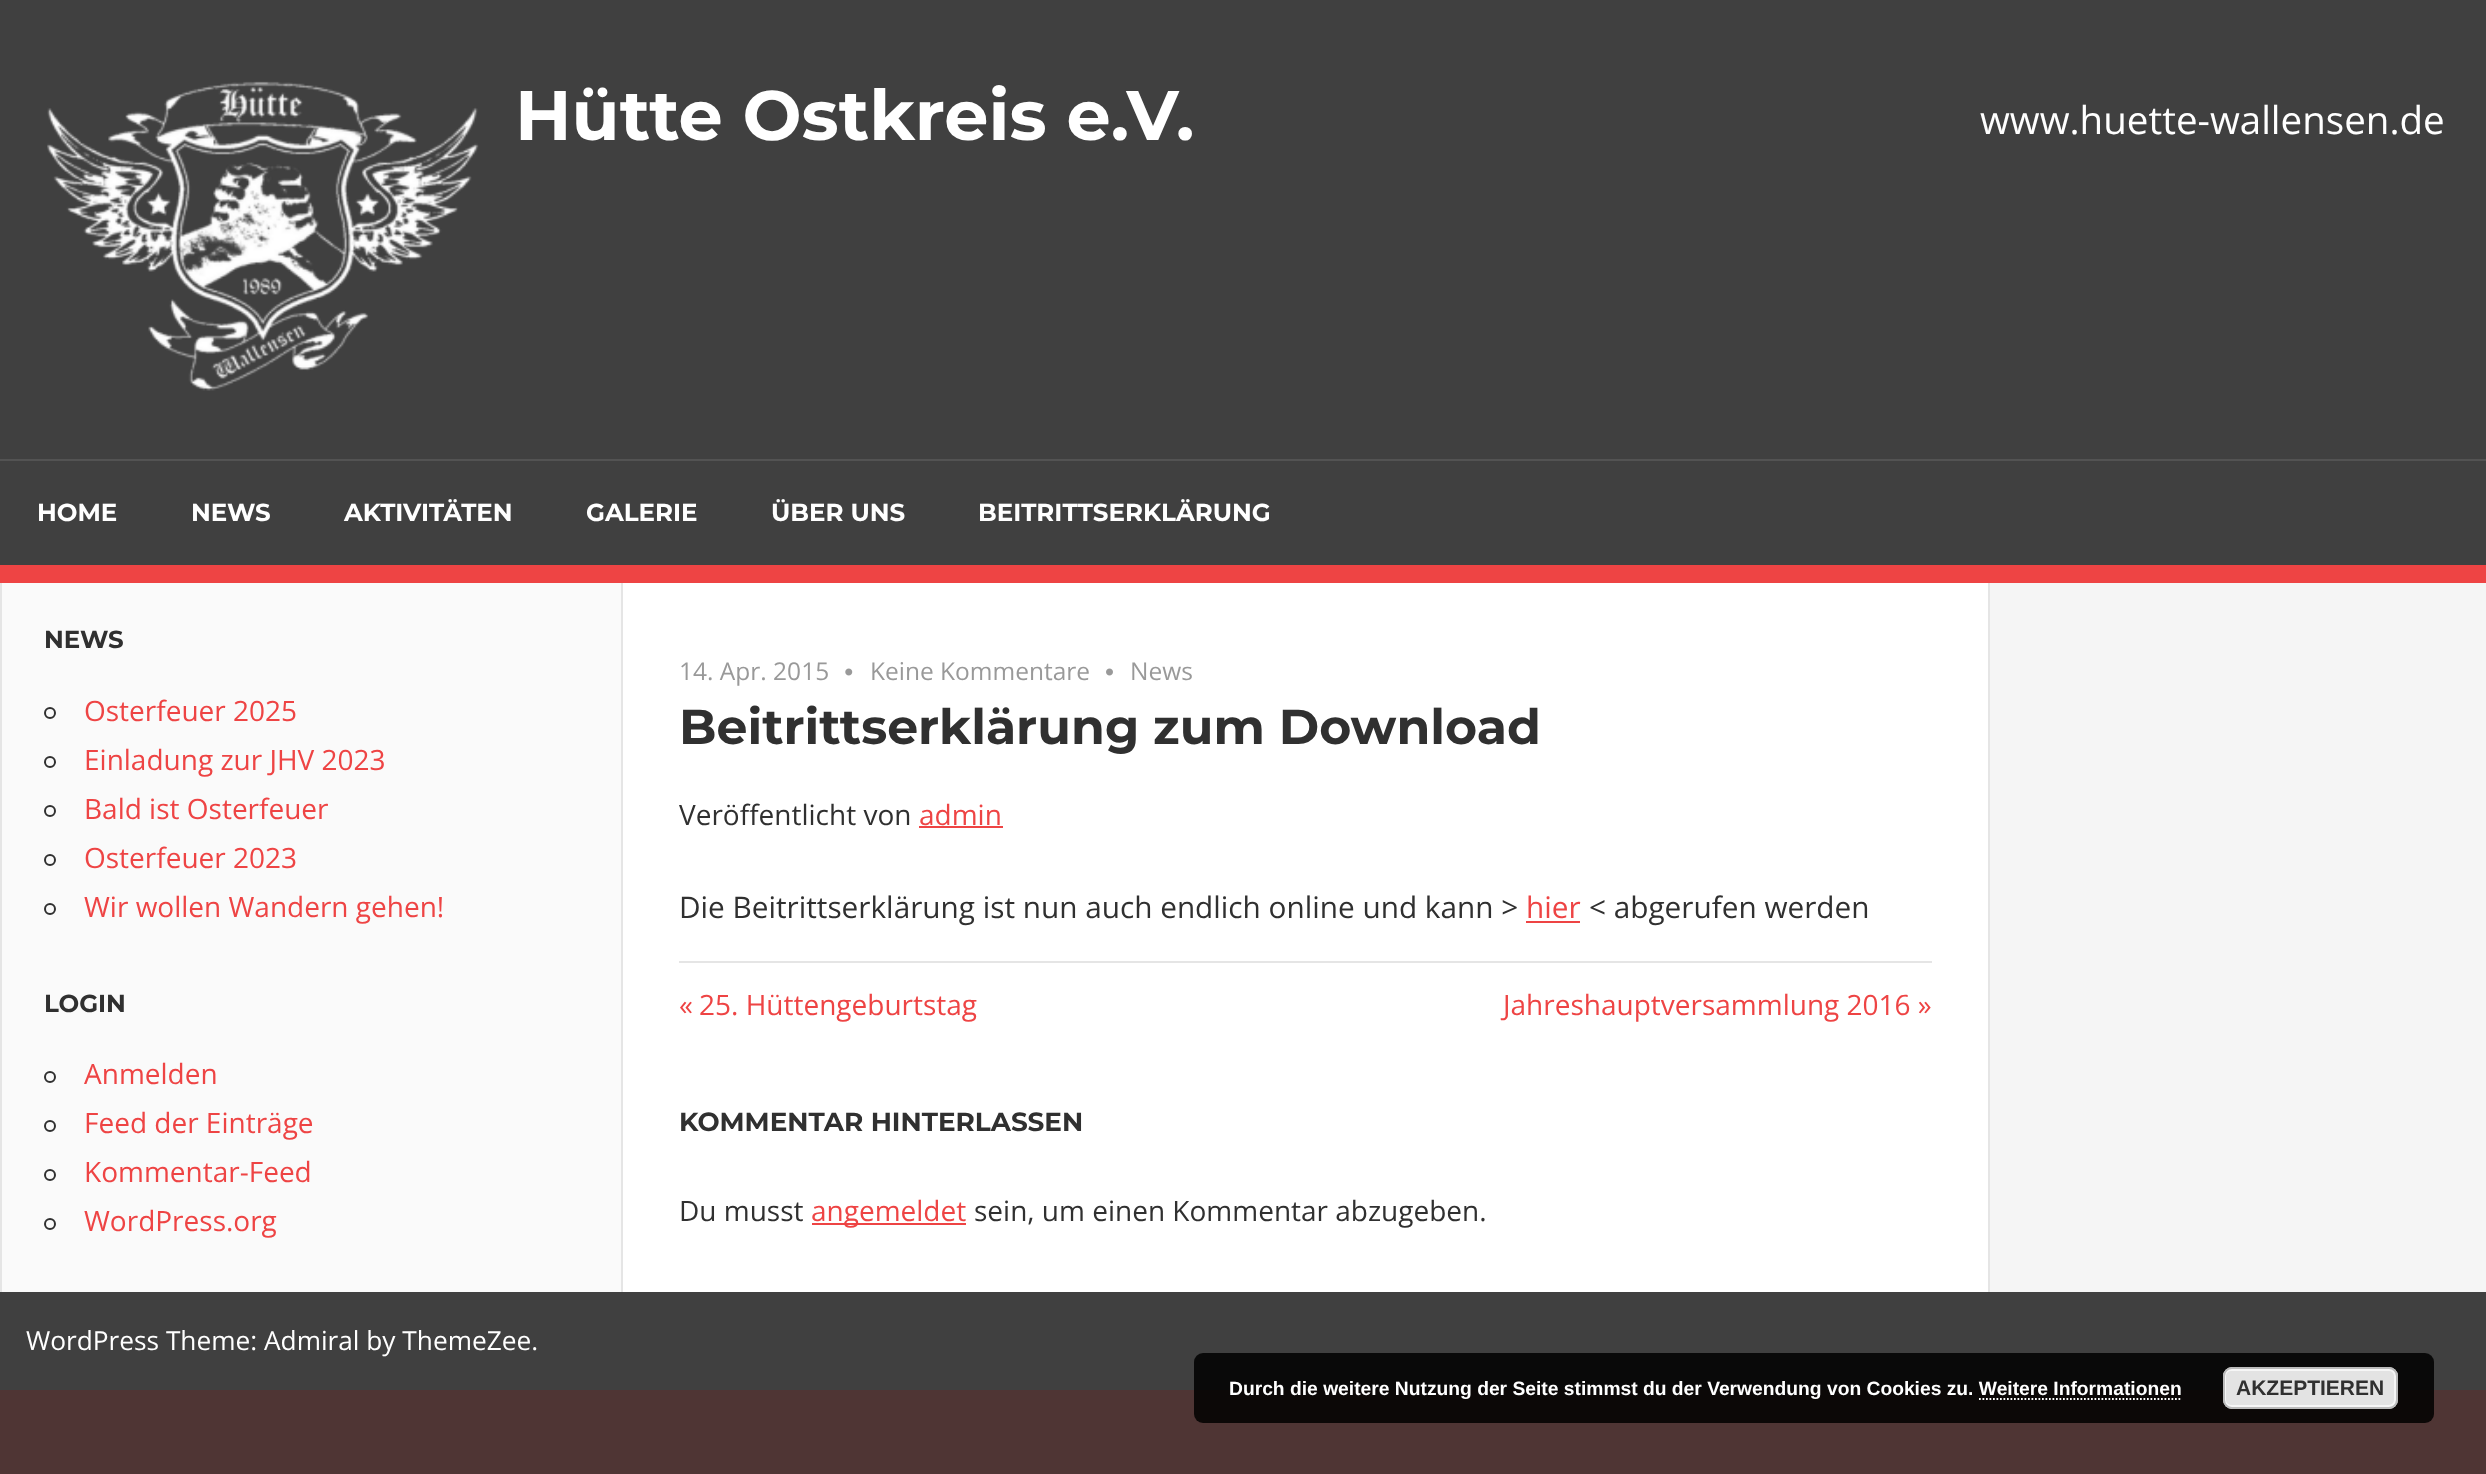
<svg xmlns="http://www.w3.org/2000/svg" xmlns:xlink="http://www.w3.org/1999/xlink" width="2486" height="1474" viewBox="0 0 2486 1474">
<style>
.cls-1{font:bold 70px Montserrat;fill:#ffffff}
.cls-2{font:38.5px Open Sans;fill:#ffffff}
.cls-3{font:bold 24.5px Montserrat;fill:#ffffff}
.cls-4{font:bold 24.5px Montserrat;fill:#303030}
.cls-5{font:28px Open Sans;fill:#ee4444}
.cls-6{font:24.5px Open Sans;fill:#999999}
.cls-7{font:bold 49px Montserrat;fill:#303030}
.cls-8{font:28px Open Sans;fill:#303030}
.cls-9{font:29.75px Open Sans;fill:#303030}
.cls-10{font:29.75px Open Sans;fill:#ee4444}
.cls-11{font:bold 26.25px Montserrat;fill:#303030}
.cls-12{font:26.25px Open Sans;fill:#ffffff}
.cls-13{font:bold 19.25px Liberation Sans;fill:#ffffff}
.cls-14{font:bold 21px Liberation Sans;fill:#303030}
</style>
<rect width="100%" height="100%" fill="#4f3534"/>
<rect fill="#404040" x="0" y="0" width="2486" height="565"/>
<rect fill="#ee4444" x="0" y="565" width="2486" height="18"/>
<image xlink:href="image0.png" x="47" y="81" width="432" height="310"/>
<rect fill="#535353" x="0" y="459" width="2486" height="2"/>
<rect fill="#fafafa" x="2" y="583" width="619" height="709"/>
<rect fill="#e5e5e5" x="0" y="583" width="2" height="709"/>
<circle fill="none" stroke="#303030" stroke-width="2" cx="50" cy="713" r="5"/>
<circle fill="none" stroke="#303030" stroke-width="2" cx="50" cy="762" r="5"/>
<circle fill="none" stroke="#303030" stroke-width="2" cx="50" cy="811" r="5"/>
<circle fill="none" stroke="#303030" stroke-width="2" cx="50" cy="860" r="5"/>
<circle fill="none" stroke="#303030" stroke-width="2" cx="50" cy="909" r="5"/>
<circle fill="none" stroke="#303030" stroke-width="2" cx="50" cy="1077" r="5"/>
<circle fill="none" stroke="#303030" stroke-width="2" cx="50" cy="1126" r="5"/>
<circle fill="none" stroke="#303030" stroke-width="2" cx="50" cy="1175" r="5"/>
<circle fill="none" stroke="#303030" stroke-width="2" cx="50" cy="1224" r="5"/>
<rect fill="#ffffff" x="623" y="583" width="1365" height="709"/>
<rect fill="#e5e5e5" x="1988" y="583" width="2" height="709"/>
<rect fill="#e5e5e5" x="621" y="583" width="2" height="709"/>
<image xlink:href="image1.png" x="845" y="668" width="8" height="8"/>
<image xlink:href="image2.png" x="1106" y="668" width="7" height="8"/>
<rect fill="#ee4444" x="919" y="826" width="84" height="2"/>
<rect fill="#ee4444" x="1526" y="921" width="54" height="2"/>
<rect fill="#e5e5e5" x="679" y="961" width="1253" height="2"/>
<rect fill="#ee4444" x="812" y="1223" width="154" height="2"/>
<rect fill="#f5f5f5" x="1990" y="583" width="496" height="709"/>
<rect fill="#404040" x="0" y="1292" width="2486" height="98"/>
<rect fill="#000000" fill-opacity="0.85" x="1194" y="1353" width="1240" height="70" rx="9"/>
<rect fill="#e3e3e3" x="2223" y="1367" width="175" height="42" rx="9"/>
<rect fill="none" stroke="#f6f6f6" stroke-width="2" x="2225" y="1370" width="170" height="36" rx="6"/>
<rect fill="none" stroke="#bbbbbb" stroke-width="2" x="2224" y="1368" width="173" height="40" rx="8"/>
<path fill="none" stroke="#ffffff" stroke-width="1.8" stroke-dasharray="1.75 1.75" d="M1979 1399H2182"/>
<text class="cls-1" x="515" y="140">Hütte Ostkreis e.V.</text>
<text class="cls-2" x="1980" y="134">www.huette-wallensen.de</text>
<text class="cls-3" x="37" y="521">HOME</text>
<text class="cls-3" x="191" y="521">NEWS</text>
<text class="cls-3" x="344" y="521">AKTIVITÄTEN</text>
<text class="cls-3" x="586" y="521">GALERIE</text>
<text class="cls-3" x="771" y="521">ÜBER UNS</text>
<text class="cls-3" x="978" y="521">BEITRITTSERKLÄRUNG</text>
<text class="cls-4" x="44" y="648">NEWS</text>
<text class="cls-5"><tspan x="84" y="721">Osterfeuer 2025</tspan><tspan x="84" y="770">Einladung zur JHV 2023</tspan><tspan x="84" y="819">Bald ist Osterfeuer</tspan><tspan x="84" y="868">Osterfeuer 2023</tspan><tspan x="84" y="917">Wir wollen Wandern gehen!</tspan></text>
<text class="cls-4" x="44" y="1012">LOGIN</text>
<text class="cls-5"><tspan x="84" y="1084">Anmelden</tspan><tspan x="84" y="1133">Feed der Einträge</tspan><tspan x="84" y="1182">Kommentar-Feed</tspan><tspan x="84" y="1231">WordPress.org</tspan></text>
<text class="cls-6" x="679" y="680">14. Apr. 2015</text>
<text class="cls-6" x="870" y="680">Keine Kommentare</text>
<text class="cls-6" x="1130" y="680">News</text>
<text class="cls-7" x="679" y="744">Beitrittserklärung zum Download</text>
<text class="cls-8" x="679" y="825">Veröffentlicht von</text>
<text class="cls-5" x="919" y="825">admin</text>
<text class="cls-9" x="679" y="918">Die Beitrittserklärung ist nun auch endlich online und kann &gt;</text>
<text class="cls-10" x="1526" y="918">hier</text>
<text class="cls-9" x="1589" y="918">&lt; abgerufen werden</text>
<text class="cls-5" x="679" y="1015">«</text>
<text class="cls-5" x="699" y="1015">25. Hüttengeburtstag</text>
<text class="cls-5" x="1503" y="1015">Jahreshauptversammlung 2016 »</text>
<text class="cls-11" x="679" y="1131">KOMMENTAR HINTERLASSEN</text>
<text class="cls-8" x="679" y="1221">Du musst</text>
<text class="cls-5" x="811" y="1221">angemeldet</text>
<text class="cls-8" x="974" y="1221">sein, um einen Kommentar abzugeben.</text>
<text class="cls-12" x="26" y="1350">WordPress Theme: Admiral by ThemeZee.</text>
<text class="cls-13" x="1229" y="1395">Durch die weitere Nutzung der Seite stimmst du der Verwendung von Cookies zu. Weitere Informationen</text>
<text class="cls-14" x="2236" y="1395">AKZEPTIEREN</text>
</svg>
